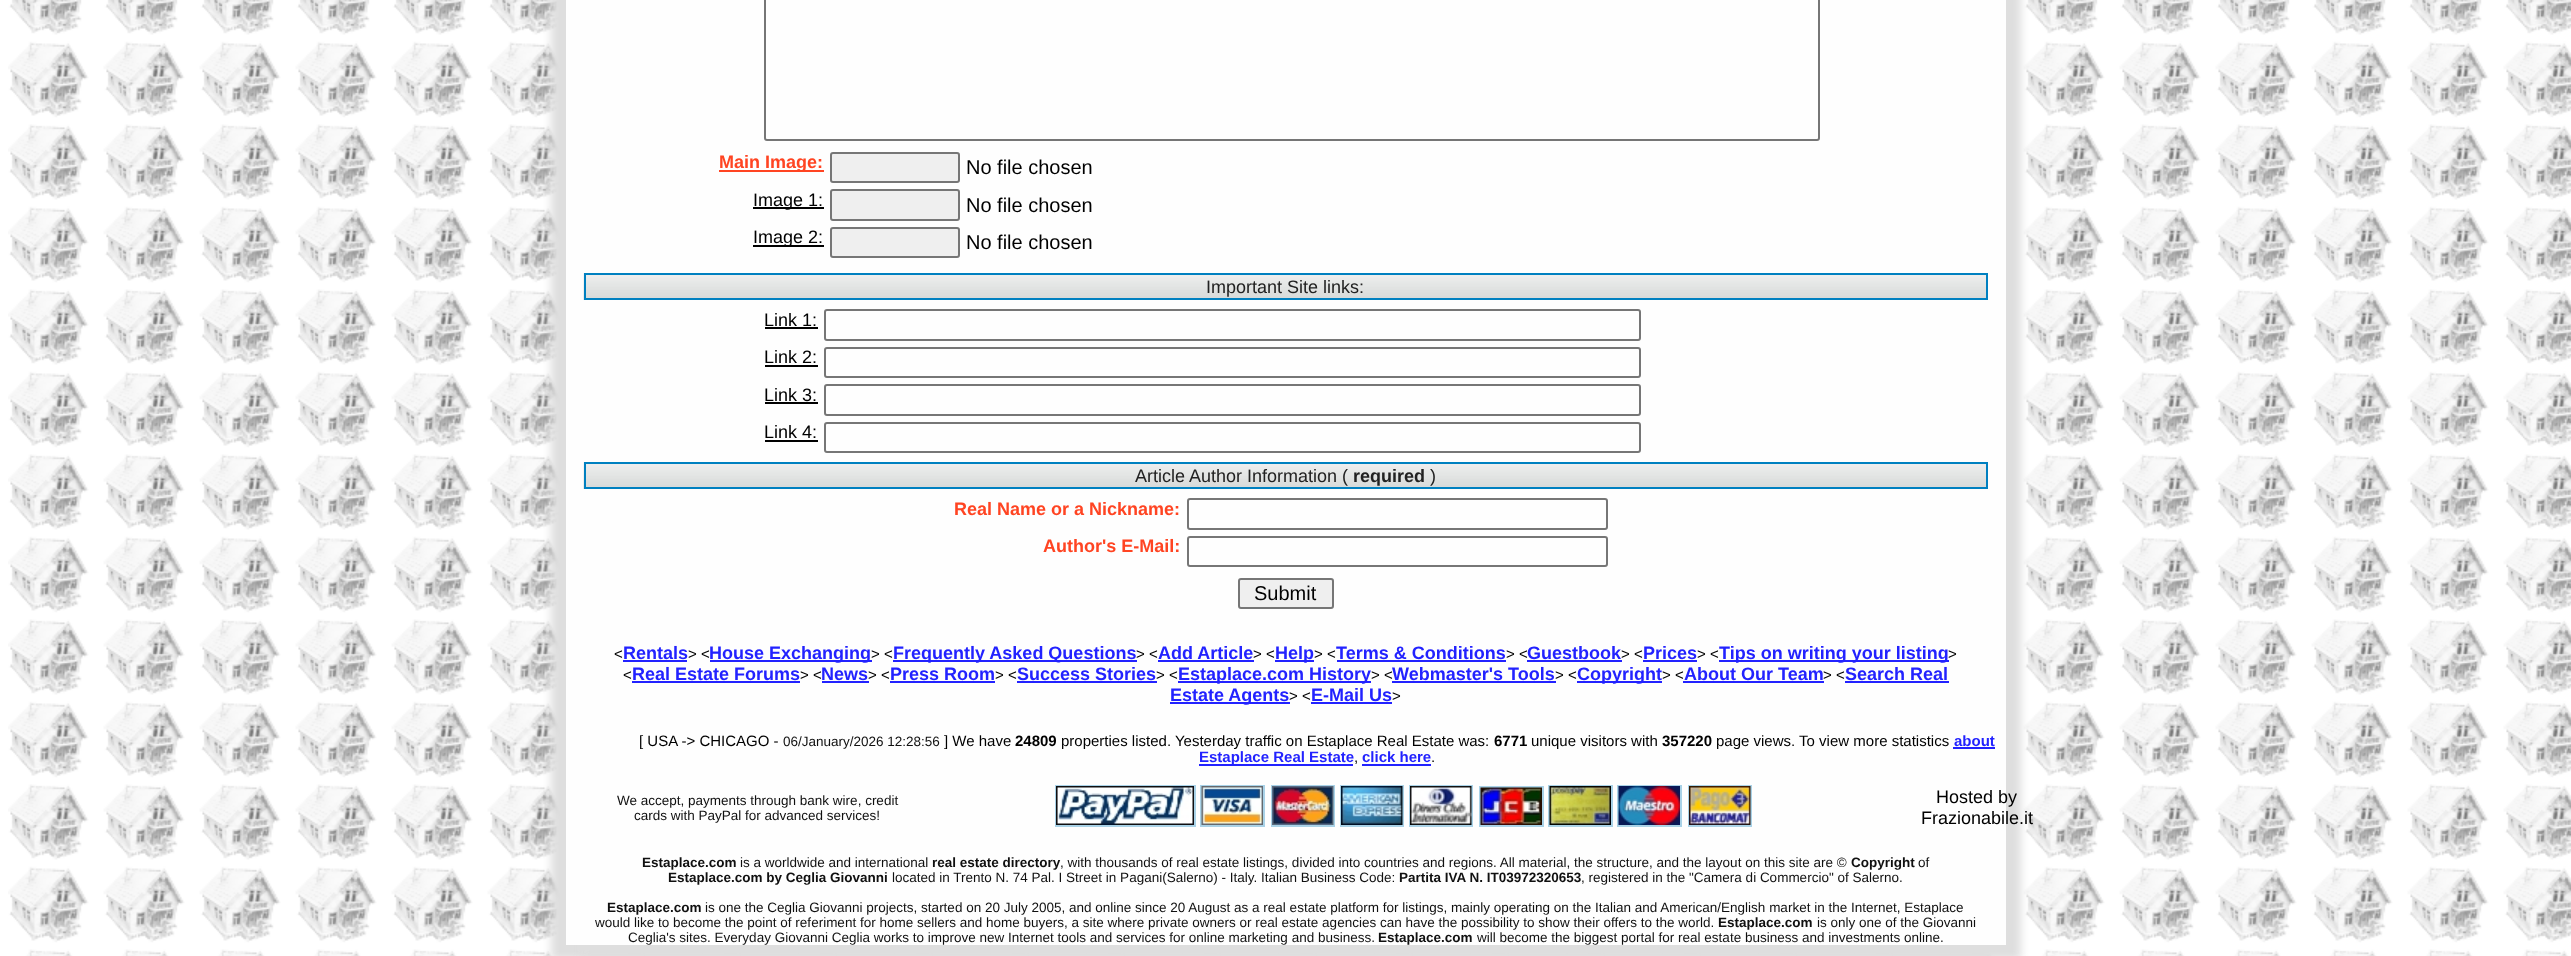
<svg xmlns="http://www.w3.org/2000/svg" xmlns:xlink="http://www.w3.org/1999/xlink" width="2571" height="956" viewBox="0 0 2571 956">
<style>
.cls-1{font:bold 18px Liberation Sans;fill:#ff4422}
.cls-2{font:20px Liberation Sans;fill:#000000}
.cls-3{font:18px Liberation Sans;fill:#000000}
.cls-4{font:18px Liberation Sans;fill:#222222}
.cls-5{font:bold 18px Liberation Sans;fill:#222222}
.cls-6{font:15px Liberation Sans;fill:#000000}
.cls-7{font:bold 18px Liberation Sans;fill:#2222ff}
.cls-8{font:13.5px Liberation Sans;fill:#101010}
.cls-9{font:bold 15px Liberation Sans;fill:#000000}
.cls-10{font:bold 15px Liberation Sans;fill:#2222ff}
.cls-11{font:bold 13.5px Liberation Sans;fill:#101010}
</style>
<rect width="100%" height="100%" fill="#ffffff"/>
<image xlink:href="image0.png" x="8" y="0" width="2563" height="956"/>
<rect fill="#dedede" filter="blur(4px)" x="551" y="-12" width="1440" height="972"/>
<rect fill="#dedede" filter="blur(4px)" x="581" y="-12" width="1440" height="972"/>
<rect fill="#fefefe" x="566" y="0" width="1440" height="945"/>
<rect fill="none" stroke="#767676" stroke-width="2" x="765" y="-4" width="1054" height="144" rx="2"/>
<rect fill="#ff4422" x="719" y="170" width="105" height="2"/>
<rect fill="#efefef" stroke="#767676" stroke-width="2" x="831" y="153" width="128" height="29" rx="2"/>
<rect fill="#000000" x="753" y="207" width="71" height="2"/>
<rect fill="#efefef" stroke="#767676" stroke-width="2" x="831" y="190" width="128" height="30" rx="2"/>
<rect fill="#000000" x="753" y="245" width="71" height="2"/>
<rect fill="#efefef" stroke="#767676" stroke-width="2" x="831" y="228" width="128" height="29" rx="2"/>
<image xlink:href="image1.png" x="583" y="273" width="1403" height="27"/>
<rect fill="none" stroke="#0080c0" stroke-width="2" x="585" y="274" width="1402" height="25"/>
<rect fill="#000000" x="765" y="327" width="53" height="2"/>
<rect fill="none" stroke="#767676" stroke-width="2" x="825" y="310" width="815" height="30" rx="2"/>
<rect fill="#000000" x="765" y="365" width="53" height="2"/>
<rect fill="none" stroke="#767676" stroke-width="2" x="825" y="348" width="815" height="29" rx="2"/>
<rect fill="#000000" x="765" y="402" width="53" height="2"/>
<rect fill="none" stroke="#767676" stroke-width="2" x="825" y="385" width="815" height="30" rx="2"/>
<rect fill="#000000" x="765" y="440" width="53" height="2"/>
<rect fill="none" stroke="#767676" stroke-width="2" x="825" y="423" width="815" height="29" rx="2"/>
<image xlink:href="image1.png" x="583" y="462" width="1403" height="27"/>
<rect fill="none" stroke="#0080c0" stroke-width="2" x="585" y="463" width="1402" height="25"/>
<rect fill="none" stroke="#767676" stroke-width="2" x="1188" y="499" width="419" height="30" rx="2"/>
<rect fill="none" stroke="#767676" stroke-width="2" x="1188" y="537" width="419" height="29" rx="2"/>
<rect fill="#efefef" stroke="#767676" stroke-width="2" x="1239" y="579" width="94" height="29" rx="2"/>
<rect fill="#2222ff" x="623" y="660" width="64" height="2"/>
<rect fill="#2222ff" x="710" y="660" width="162" height="2"/>
<rect fill="#2222ff" x="893" y="660" width="244" height="2"/>
<rect fill="#2222ff" x="1158" y="660" width="96" height="2"/>
<rect fill="#2222ff" x="1275" y="660" width="39" height="2"/>
<rect fill="#2222ff" x="1337" y="660" width="169" height="2"/>
<rect fill="#2222ff" x="1527" y="660" width="95" height="2"/>
<rect fill="#2222ff" x="1643" y="660" width="54" height="2"/>
<rect fill="#2222ff" x="1719" y="660" width="230" height="2"/>
<rect fill="#2222ff" x="632" y="681" width="168" height="2"/>
<rect fill="#2222ff" x="822" y="681" width="47" height="2"/>
<rect fill="#2222ff" x="890" y="681" width="105" height="2"/>
<rect fill="#2222ff" x="1017" y="681" width="140" height="2"/>
<rect fill="#2222ff" x="1178" y="681" width="193" height="2"/>
<rect fill="#2222ff" x="1392" y="681" width="164" height="2"/>
<rect fill="#2222ff" x="1577" y="681" width="85" height="2"/>
<rect fill="#2222ff" x="1683" y="681" width="141" height="2"/>
<rect fill="#2222ff" x="1845" y="681" width="104" height="2"/>
<rect fill="#2222ff" x="1170" y="702" width="120" height="2"/>
<rect fill="#2222ff" x="1311" y="702" width="81" height="2"/>
<rect fill="#2222ff" x="1953" y="747" width="42" height="2"/>
<rect fill="#2222ff" x="1199" y="764" width="154" height="2"/>
<rect fill="#2222ff" x="1362" y="764" width="69" height="2"/>
<rect fill="none" stroke="#a9d2e7" stroke-width="2" x="1056" y="786" width="139" height="40"/>
<rect fill="none" stroke="#a9d2e7" stroke-width="2" x="1201" y="786" width="63" height="40"/>
<rect fill="none" stroke="#a9d2e7" stroke-width="2" x="1272" y="786" width="62" height="40"/>
<rect fill="none" stroke="#a9d2e7" stroke-width="2" x="1341" y="786" width="62" height="40"/>
<rect fill="none" stroke="#a9d2e7" stroke-width="2" x="1410" y="786" width="62" height="40"/>
<rect fill="none" stroke="#a9d2e7" stroke-width="2" x="1549" y="786" width="63" height="40"/>
<rect fill="none" stroke="#a9d2e7" stroke-width="2" x="1618" y="786" width="63" height="40"/>
<rect fill="none" stroke="#a9d2e7" stroke-width="2" x="1689" y="786" width="62" height="40"/>
<image xlink:href="image2.png" x="1056" y="786" width="138" height="39"/>
<image xlink:href="image3.png" x="1201" y="786" width="62" height="39"/>
<image xlink:href="image4.png" x="1272" y="786" width="62" height="39"/>
<image xlink:href="image5.png" x="1341" y="786" width="62" height="39"/>
<image xlink:href="image6.png" x="1410" y="786" width="62" height="39"/>
<rect fill="none" stroke="#a9d2e7" stroke-width="2" x="1480" y="787" width="63" height="39"/>
<image xlink:href="image7.png" x="1549" y="786" width="62" height="39"/>
<image xlink:href="image8.png" x="1618" y="786" width="62" height="39"/>
<image xlink:href="image9.png" x="1689" y="786" width="62" height="39"/>
<image xlink:href="image10.png" x="1480" y="787" width="62" height="38"/>
<text class="cls-1" x="719" y="168">Main Image:</text>
<text class="cls-2" x="966" y="174">No file chosen</text>
<text class="cls-3" x="753" y="206">Image 1:</text>
<text class="cls-2" x="966" y="212">No file chosen</text>
<text class="cls-3" x="753" y="243">Image 2:</text>
<text class="cls-2" x="966" y="249">No file chosen</text>
<text class="cls-4" x="1206" y="293">Important Site links:</text>
<text class="cls-3" x="764" y="326">Link 1:</text>
<text class="cls-3" x="764" y="363">Link 2:</text>
<text class="cls-3" x="764" y="401">Link 3:</text>
<text class="cls-3" x="764" y="438">Link 4:</text>
<text class="cls-4" x="1135" y="482">Article Author Information (</text>
<text class="cls-5" x="1353" y="482">required</text>
<text class="cls-4" x="1430" y="482">)</text>
<text class="cls-1" x="954" y="515">Real Name or a Nickname:</text>
<text class="cls-1" x="1043" y="552">Author's E-Mail:</text>
<text class="cls-2" x="1254" y="600">Submit</text>
<text class="cls-6" x="614" y="659">&lt;</text>
<text class="cls-7" x="623" y="659">Rentals</text>
<text class="cls-6" x="688" y="659">&gt; &lt;</text>
<text class="cls-7" x="709" y="659">House Exchanging</text>
<text class="cls-6" x="871" y="659">&gt; &lt;</text>
<text class="cls-7" x="893" y="659">Frequently Asked Questions</text>
<text class="cls-6" x="1136" y="659">&gt; &lt;</text>
<text class="cls-7" x="1158" y="659">Add Article</text>
<text class="cls-6" x="1253" y="659">&gt; &lt;</text>
<text class="cls-7" x="1275" y="659">Help</text>
<text class="cls-6" x="1314" y="659">&gt; &lt;</text>
<text class="cls-7" x="1336" y="659">Terms &amp; Conditions</text>
<text class="cls-6" x="1506" y="659">&gt; &lt;</text>
<text class="cls-7" x="1527" y="659">Guestbook</text>
<text class="cls-6" x="1621" y="659">&gt; &lt;</text>
<text class="cls-7" x="1643" y="659">Prices</text>
<text class="cls-6" x="1697" y="659">&gt; &lt;</text>
<text class="cls-7" x="1719" y="659">Tips on writing your listing</text>
<text class="cls-6" x="1948" y="659">&gt;</text>
<text class="cls-6" x="623" y="680">&lt;</text>
<text class="cls-7" x="632" y="680">Real Estate Forums</text>
<text class="cls-6" x="800" y="680">&gt; &lt;</text>
<text class="cls-7" x="821" y="680">News</text>
<text class="cls-6" x="868" y="680">&gt; &lt;</text>
<text class="cls-7" x="890" y="680">Press Room</text>
<text class="cls-6" x="995" y="680">&gt; &lt;</text>
<text class="cls-7" x="1017" y="680">Success Stories</text>
<text class="cls-6" x="1156" y="680">&gt; &lt;</text>
<text class="cls-7" x="1178" y="680">Estaplace.com History</text>
<text class="cls-6" x="1371" y="680">&gt; &lt;</text>
<text class="cls-7" x="1392" y="680">Webmaster's Tools</text>
<text class="cls-6" x="1555" y="680">&gt; &lt;</text>
<text class="cls-7" x="1577" y="680">Copyright</text>
<text class="cls-6" x="1662" y="680">&gt; &lt;</text>
<text class="cls-7" x="1684" y="680">About Our Team</text>
<text class="cls-6" x="1823" y="680">&gt; &lt;</text>
<text class="cls-7" x="1845" y="680">Search Real</text>
<text class="cls-7" x="1170" y="701">Estate Agents</text>
<text class="cls-6" x="1289" y="701">&gt; &lt;</text>
<text class="cls-7" x="1311" y="701">E-Mail Us</text>
<text class="cls-6" x="1392" y="701">&gt;</text>
<text class="cls-6" x="639" y="746">[ USA -&gt; CHICAGO -</text>
<text class="cls-8" x="783" y="746">06/January/2026 12:28:56</text>
<text class="cls-6" x="944" y="746">] We have</text>
<text class="cls-9" x="1015" y="746">24809</text>
<text class="cls-6" x="1061" y="746">properties listed. Yesterday traffic on Estaplace Real Estate was:</text>
<text class="cls-9" x="1494" y="746">6771</text>
<text class="cls-6" x="1531" y="746">unique visitors with</text>
<text class="cls-9" x="1662" y="746">357220</text>
<text class="cls-6" x="1716" y="746">page views. To view more statistics</text>
<text class="cls-10" x="1954" y="746">about</text>
<text class="cls-10" x="1199" y="762">Estaplace Real Estate</text>
<text class="cls-6" x="1354" y="762">,</text>
<text class="cls-10" x="1362" y="762">click here</text>
<text class="cls-6" x="1431" y="762">.</text>
<text class="cls-8" x="617" y="805">We accept, payments through bank wire, credit</text>
<text class="cls-8" x="634" y="820">cards with PayPal for advanced services!</text>
<text class="cls-3" x="1936" y="803">Hosted by</text>
<text class="cls-3" x="1921" y="824">Frazionabile.it</text>
<text class="cls-11" x="642" y="867">Estaplace.com</text>
<text class="cls-8" x="740" y="867">is a worldwide and international</text>
<text class="cls-11" x="932" y="867">real estate directory</text>
<text class="cls-8" x="1060" y="867">, with thousands of real estate listings, divided into countries and regions. All material, the structure, and the layout on this site are ©</text>
<text class="cls-11" x="1851" y="867">Copyright</text>
<text class="cls-8" x="1918" y="867">of</text>
<text class="cls-11" x="668" y="882">Estaplace.com by Ceglia Giovanni</text>
<text class="cls-8" x="892" y="882">located in Trento N. 74 Pal. I Street in Pagani(Salerno) - Italy. Italian Business Code:</text>
<text class="cls-11" x="1399" y="882">Partita IVA N. IT03972320653</text>
<text class="cls-8" x="1581" y="882">, registered in the "Camera di Commercio" of Salerno.</text>
<text class="cls-11" x="607" y="912">Estaplace.com</text>
<text class="cls-8" x="705" y="912">is one the Ceglia Giovanni projects, started on 20 July 2005, and online since 20 August as a real estate platform for listings, mainly operating on the Italian and American/English market in the Internet, Estaplace</text>
<text class="cls-8" x="595" y="927">would like to become the point of referiment for home sellers and home buyers, a site where private owners or real estate agencies can have the possibility to show their offers to the world.</text>
<text class="cls-11" x="1718" y="927">Estaplace.com</text>
<text class="cls-8" x="1817" y="927">is only one of the Giovanni</text>
<text class="cls-8" x="628" y="942">Ceglia's sites. Everyday Giovanni Ceglia works to improve new Internet tools and services for online marketing and business.</text>
<text class="cls-11" x="1378" y="942">Estaplace.com</text>
<text class="cls-8" x="1477" y="942">will become the biggest portal for real estate business and investments online.</text>
</svg>
